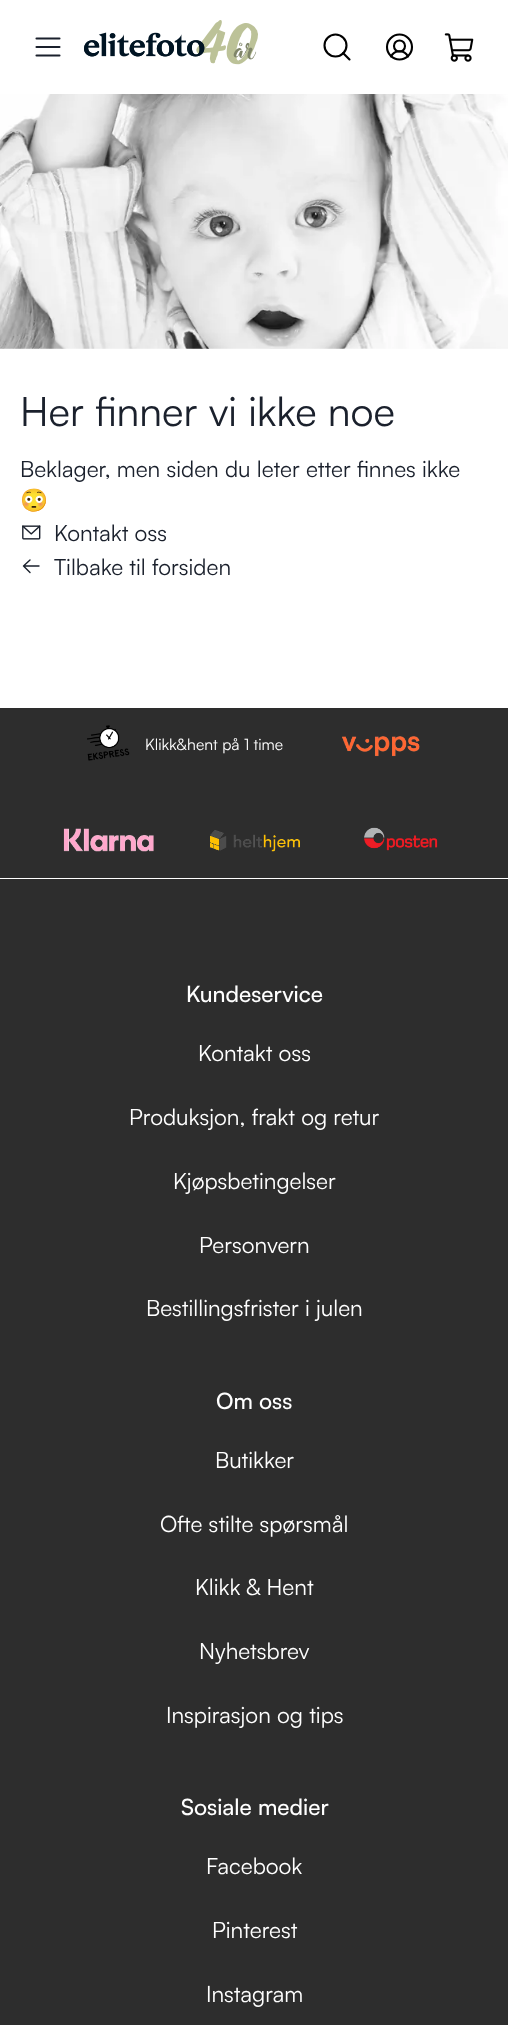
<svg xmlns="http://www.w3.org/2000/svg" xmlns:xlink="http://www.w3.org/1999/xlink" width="508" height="2025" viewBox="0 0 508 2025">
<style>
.cls-1{font:40.5px Satoshi;fill:#1a202c}
.cls-2{font:22.5px Satoshi;fill:#1a202c}
.cls-3{font:22.5px Noto Color Emoji;fill:#1a202c}
.cls-4{font:15.75px Satoshi;fill:#ffffff}
.cls-5{font:500 22.5px Satoshi;fill:#ffffff}
.cls-6{font:22.5px Satoshi;fill:#ffffff}
</style>
<rect width="100%" height="100%" fill="#ffffff"/>
<path fill="none" stroke="#1a202c" stroke-width="2.1" stroke-linecap="round" stroke-linejoin="round" d="M36.5 47H59.5M36.5 38.5H59.5M36.5 55.5H59.5"/>
<image xlink:href="image0.png" x="84" y="20" width="174" height="45"/>
<circle fill="none" stroke="#000000" stroke-width="2.1" cx="335.5" cy="45.5" r="11"/>
<path fill="none" stroke="#000000" stroke-width="2.1" stroke-linecap="round" stroke-linejoin="round" d="M343 53L349.5 59.5"/>
<circle fill="none" stroke="#000000" stroke-width="2.1" cx="399.5" cy="47" r="12.5"/>
<circle fill="none" stroke="#000000" stroke-width="2.1" cx="399.5" cy="46" r="5.5"/>
<path fill="none" stroke="#000000" stroke-width="2.1" stroke-linecap="round" stroke-linejoin="round" d="M391 56.5C394.5 49.5 404.5 49.5 408 56.5"/>
<image xlink:href="image1.png" x="444" y="33" width="30" height="29"/>
<image xlink:href="image2.png" x="0" y="94" width="508" height="255"/>
<image xlink:href="image3.png" x="22" y="525" width="19" height="15"/>
<path fill="none" stroke="#1a202c" stroke-width="1.4" stroke-linecap="round" stroke-linejoin="round" d="M39 566H23.5M30 560L23.5 566L30 572.5"/>
<rect fill="#2d2d2d" x="0" y="708" width="508" height="170"/>
<image xlink:href="image4.png" x="87" y="725" width="43" height="36"/>
<image xlink:href="image5.png" x="342" y="736" width="78" height="21"/>
<image xlink:href="image6.png" x="63" y="828" width="91" height="24"/>
<image xlink:href="image7.png" x="210" y="830" width="90" height="22"/>
<image xlink:href="image8.png" x="364" y="827" width="74" height="24"/>
<rect fill="#2d2d2d" x="0" y="879" width="508" height="1146"/>
<text class="cls-1" x="20" y="426">Her finner vi ikke noe</text>
<text class="cls-2" x="20" y="477">Beklager, men siden du leter etter finnes ikke</text>
<text class="cls-3" x="20" y="508">😳</text>
<text class="cls-2"><tspan x="54" y="541">Kontakt oss</tspan><tspan x="54" y="575">Tilbake til forsiden</tspan></text>
<text class="cls-4" x="145" y="750">Klikk&amp;hent på 1 time</text>
<text class="cls-5" x="186" y="1002">Kundeservice</text>
<text class="cls-6" x="198" y="1061">Kontakt oss</text>
<text class="cls-6" x="129" y="1125">Produksjon, frakt og retur</text>
<text class="cls-6" x="173" y="1189">Kjøpsbetingelser</text>
<text class="cls-6" x="199" y="1253">Personvern</text>
<text class="cls-6" x="146" y="1316">Bestillingsfrister i julen</text>
<text class="cls-5" x="216" y="1409">Om oss</text>
<text class="cls-6" x="215" y="1468">Butikker</text>
<text class="cls-6" x="160" y="1532">Ofte stilte spørsmål</text>
<text class="cls-6" x="195" y="1595">Klikk &amp; Hent</text>
<text class="cls-6" x="199" y="1659">Nyhetsbrev</text>
<text class="cls-6" x="166" y="1723">Inspirasjon og tips</text>
<text class="cls-5" x="181" y="1815">Sosiale medier</text>
<text class="cls-6" x="206" y="1874">Facebook</text>
<text class="cls-6" x="212" y="1938">Pinterest</text>
<text class="cls-6" x="206" y="2002">Instagram</text>
</svg>
